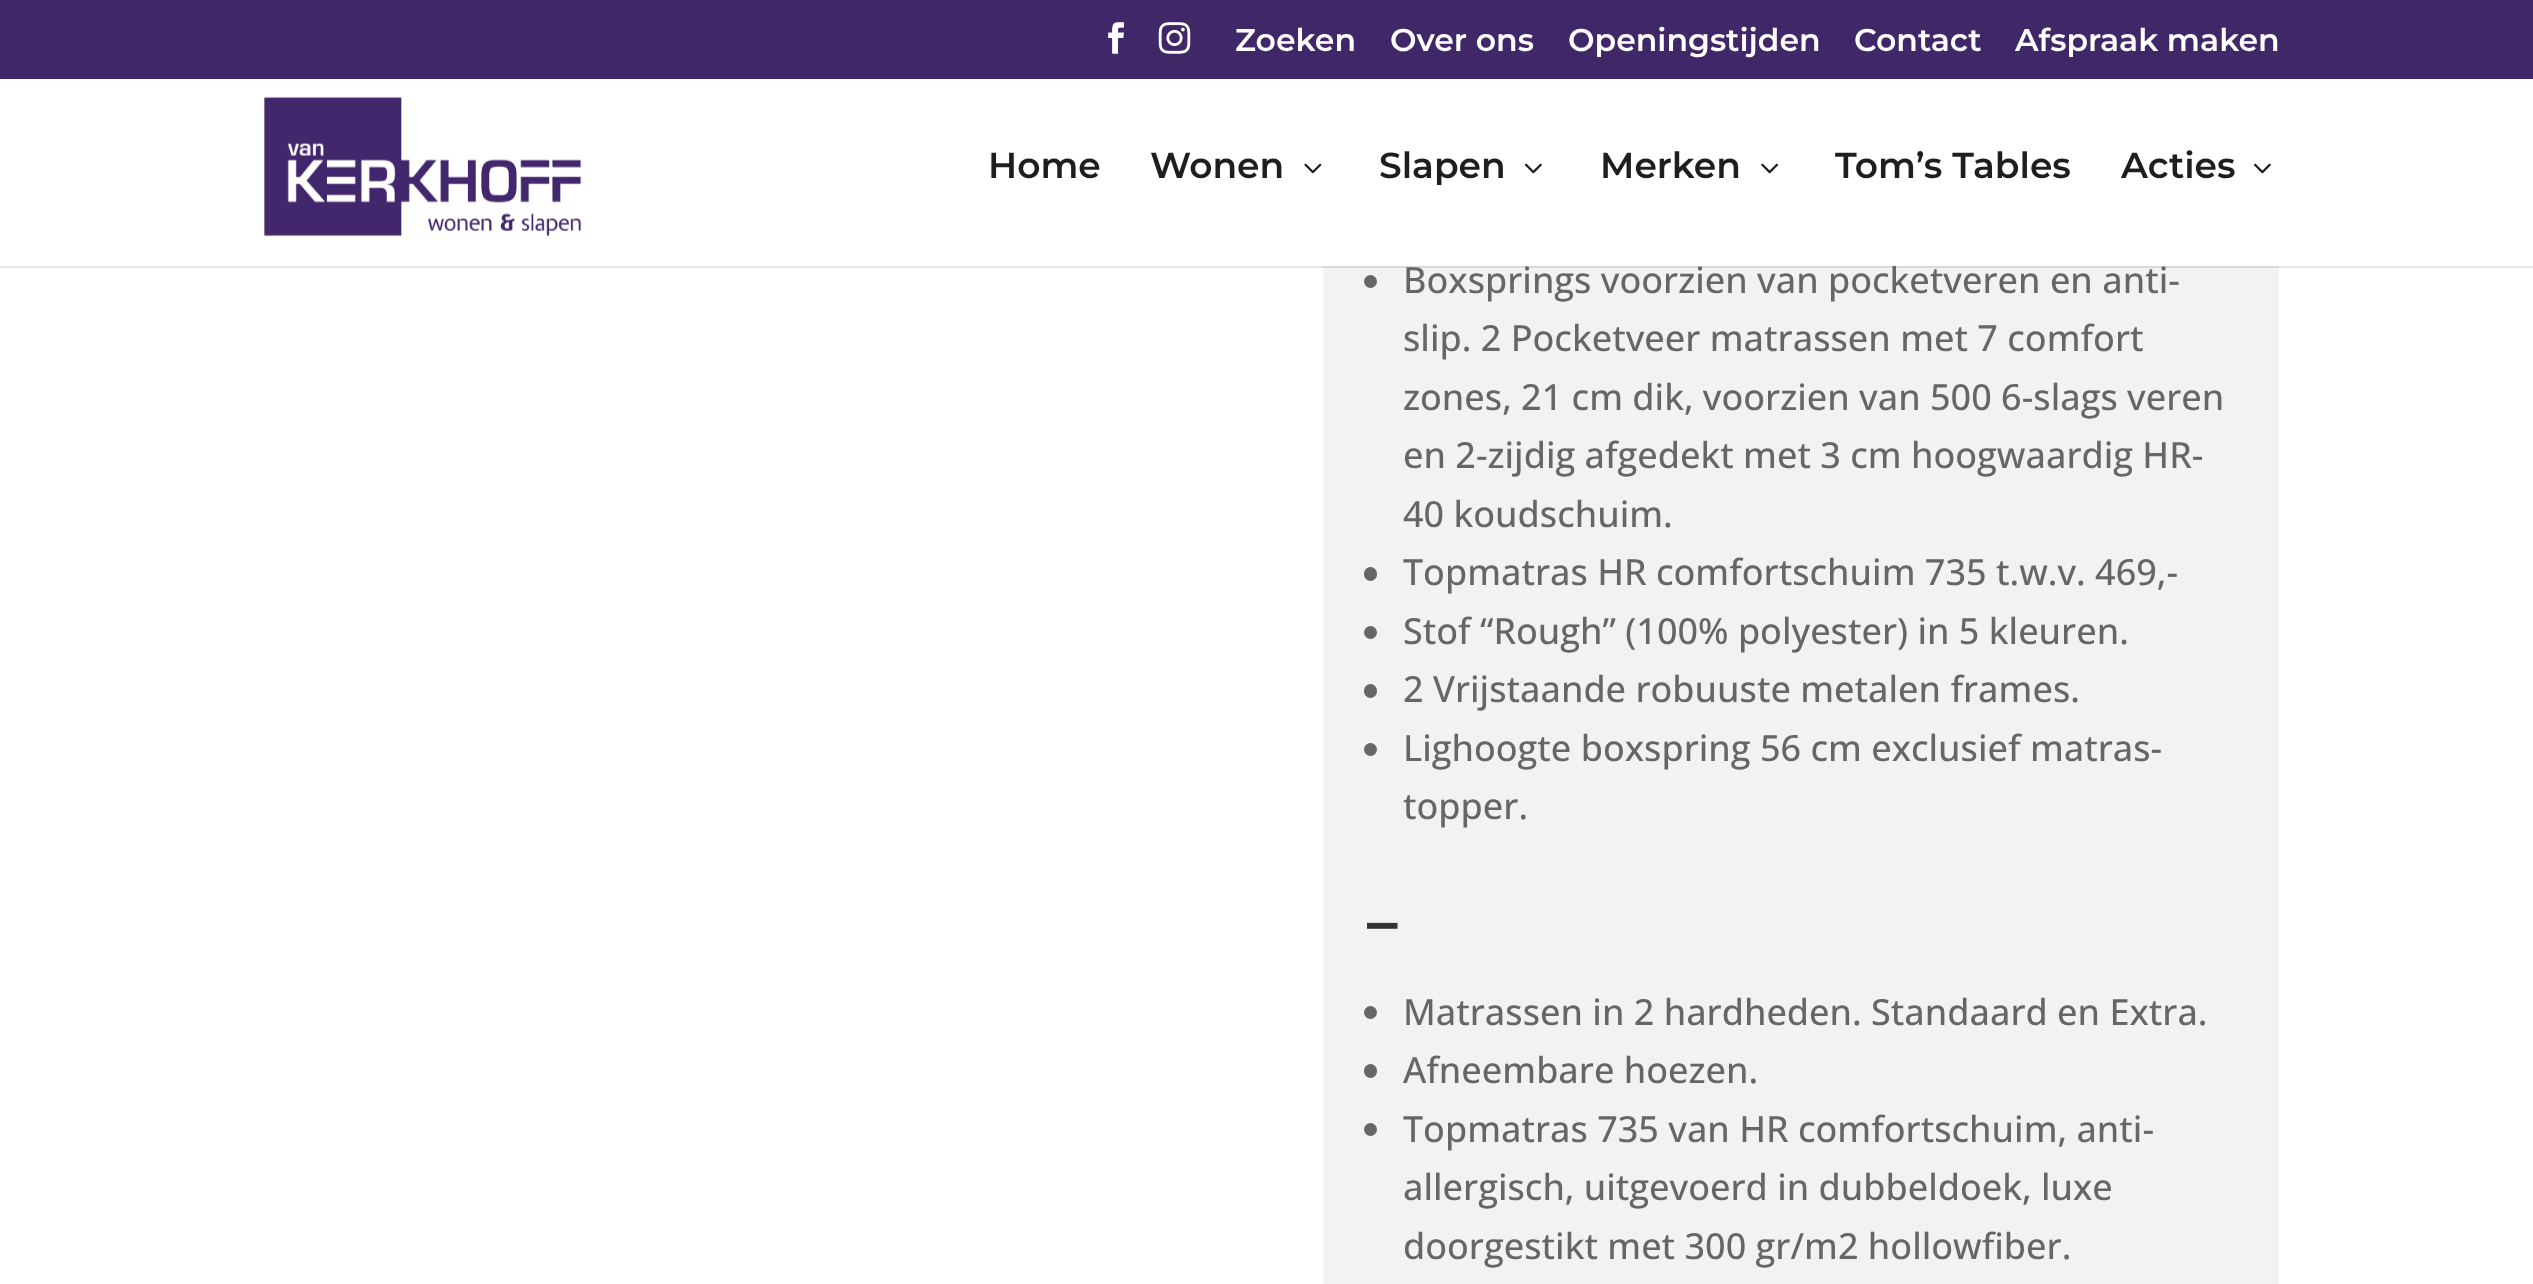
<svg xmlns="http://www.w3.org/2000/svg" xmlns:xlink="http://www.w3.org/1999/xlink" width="2533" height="1284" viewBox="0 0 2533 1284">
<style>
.cls-1{font:100 31.5px 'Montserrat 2';fill:#ffffff}
.cls-2{font:100 36px 'Montserrat 2';fill:#1e1e1e}
.cls-3{font:500 36px Open Sans;fill:#666666}
.cls-4{font:100 61px Montserrat;fill:#333333}
</style>
<rect width="100%" height="100%" fill="#ffffff"/>
<rect fill="#3f2768" x="0" y="0" width="2533" height="79"/>
<image xlink:href="image0.png" x="1108" y="22" width="16" height="32"/>
<image xlink:href="image1.png" x="1158" y="22" width="33" height="32"/>
<rect fill="#f2f2f2" x="1323" y="266" width="956" height="1018"/>
<path fill="#000000" fill-opacity="0.1" d="M0 266V268H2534V70V266Z"/>
<image xlink:href="image2.png" x="264" y="96" width="318" height="140"/>
<image xlink:href="image3.png" x="1304" y="163" width="18" height="11"/>
<image xlink:href="image4.png" x="1525" y="163" width="17" height="11"/>
<image xlink:href="image5.png" x="1761" y="163" width="17" height="11"/>
<image xlink:href="image4.png" x="2254" y="163" width="17" height="11"/>
<circle fill="#666666" cx="1370.5" cy="281.5" r="6.5"/>
<rect fill="#666666" x="1364" y="567" width="13" height="14" rx="6.5"/>
<circle fill="#666666" cx="1370.5" cy="632.5" r="6.5"/>
<rect fill="#666666" x="1364" y="684" width="13" height="14" rx="6.5"/>
<circle fill="#666666" cx="1370.5" cy="749.5" r="6.5"/>
<circle fill="#666666" cx="1370.5" cy="1012.5" r="6.5"/>
<rect fill="#666666" x="1364" y="1064" width="13" height="14" rx="6.5"/>
<circle fill="#666666" cx="1370.5" cy="1129.5" r="6.5"/>
<text class="cls-1" x="1235" y="51">Zoeken</text>
<text class="cls-1" x="1390" y="51">Over ons</text>
<text class="cls-1" x="1568" y="51">Openingstijden</text>
<text class="cls-1" x="1854" y="51">Contact</text>
<text class="cls-1" x="2015" y="51">Afspraak maken</text>
<text class="cls-2" x="988" y="178">Home</text>
<text class="cls-2" x="1150" y="178">Wonen</text>
<text class="cls-2" x="1379" y="178">Slapen</text>
<text class="cls-2" x="1600" y="178">Merken</text>
<text class="cls-2" x="1835" y="178">Tom’s Tables</text>
<text class="cls-2" x="2121" y="178">Acties</text>
<text class="cls-3" x="1403" y="293">Boxsprings voorzien van pocketveren en anti-</text>
<rect fill="#ffffff" x="1893" y="265" width="4" height="1"/>
<text class="cls-3"><tspan x="1403" y="351">slip. 2 Pocketveer matrassen met 7 comfort</tspan><tspan x="1403" y="410">zones, 21 cm dik, voorzien van 500 6-slags veren</tspan><tspan x="1403" y="468">en 2-zijdig afgedekt met 3 cm hoogwaardig HR-</tspan><tspan x="1403" y="527">40 koudschuim.</tspan><tspan x="1403" y="585">Topmatras HR comfortschuim 735 t.w.v. 469,-</tspan><tspan x="1403" y="644">Stof “Rough” (100% polyester) in 5 kleuren.</tspan><tspan x="1403" y="702">2 Vrijstaande robuuste metalen frames.</tspan><tspan x="1403" y="761">Lighoogte boxspring 56 cm exclusief matras-</tspan><tspan x="1403" y="819">topper.</tspan></text>
<text class="cls-4" x="1367" y="943">–</text>
<text class="cls-3"><tspan x="1403" y="1025">Matrassen in 2 hardheden. Standaard en Extra.</tspan><tspan x="1403" y="1083">Afneembare hoezen.</tspan><tspan x="1403" y="1142">Topmatras 735 van HR comfortschuim, anti-</tspan><tspan x="1403" y="1200">allergisch, uitgevoerd in dubbeldoek, luxe</tspan><tspan x="1403" y="1259">doorgestikt met 300 gr/m2 hollowfiber.</tspan></text>
</svg>
